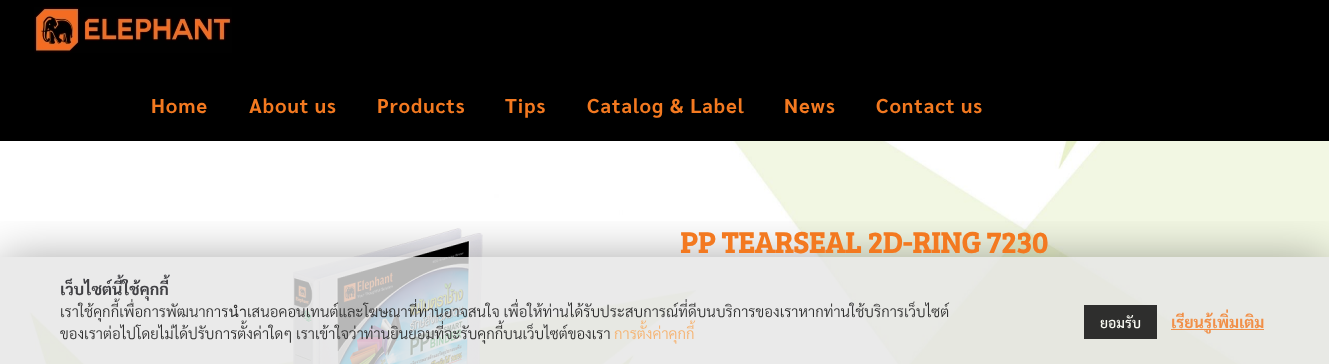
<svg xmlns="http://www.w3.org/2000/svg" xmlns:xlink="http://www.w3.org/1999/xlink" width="1329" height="364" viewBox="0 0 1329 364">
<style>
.cls-1{font:bold 20px Sarabun;letter-spacing:1px;fill:#f37920}
.cls-2{font:bold 30px Bree Serif;fill:#f37920}
.cls-3{font:bold 16px Sarabun;fill:#414145}
.cls-4{font:300 15px Sarabun;fill:#2e2e2e}
.cls-5{font:300 15px Sarabun;fill:#f6b26f}
.cls-6{font:500 14px Sarabun;fill:#fbfcf5}
.cls-7{font:bold 16px Sarabun;fill:#f18f47}
</style>
<defs>
<clipPath id="clip1"><rect x="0" y="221" width="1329" height="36"/></clipPath>
</defs>
<rect width="100%" height="100%" fill="#ffffff"/>
<rect fill="#000000" x="0" y="0" width="1329" height="141"/>
<image xlink:href="image0.png" x="34" y="7" width="198" height="46"/>
<image xlink:href="image1.png" x="29" y="141" width="1300" height="223"/>
<image xlink:href="image2.png" x="293" y="228" width="190" height="136"/>
<g clip-path="url(#clip1)">
<rect fill="#000000" fill-opacity="0.4" filter="blur(25px)" x="0" y="262" width="1329" height="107"/>
</g>
<rect fill="#e5e5e5" fill-opacity="0.8" x="0" y="257" width="1329" height="107"/>
<rect fill="#000000" fill-opacity="0.8" x="1084" y="305" width="73" height="34"/>
<rect fill="#f37920" fill-opacity="0.8" x="1171" y="329" width="93" height="1"/>
<text class="cls-1" x="151" y="113">Home</text>
<text class="cls-1" x="249" y="113">About us</text>
<text class="cls-1" x="377" y="113">Products</text>
<text class="cls-1" x="505" y="113">Tips</text>
<text class="cls-1" x="587" y="113">Catalog &amp; Label</text>
<text class="cls-1" x="784" y="113">News</text>
<text class="cls-1" x="876" y="113">Contact us</text>
<text class="cls-2" x="680" y="253">PP TEARSEAL 2D-RING 7230</text>
<text class="cls-3" x="60" y="295">เว็บไซต์นี้ใช้คุกกี้</text>
<text class="cls-4"><tspan x="60" y="317">เราใช้คุกกี้เพื่อการพัฒนาการนำเสนอคอนเทนต์และโฆษณาที่ท่านอาจสนใจ เพื่อให้ท่านได้รับประสบการณ์ที่ดีบนบริการของเราหากท่านใช้บริการเว็บไซต์</tspan><tspan x="60" y="339">ของเราต่อไปโดยไม่ได้ปรับการตั้งค่าใดๆ เราเข้าใจว่าท่านยินยอมที่จะรับคุกกี้บนเว็บไซต์ของเรา</tspan></text>
<text class="cls-5" x="614" y="339">การตั้งค่าคุกกี้</text>
<text class="cls-6" x="1100" y="328">ยอมรับ</text>
<text class="cls-7" x="1171" y="328">เรียนรู้เพิ่มเติม</text>
</svg>
